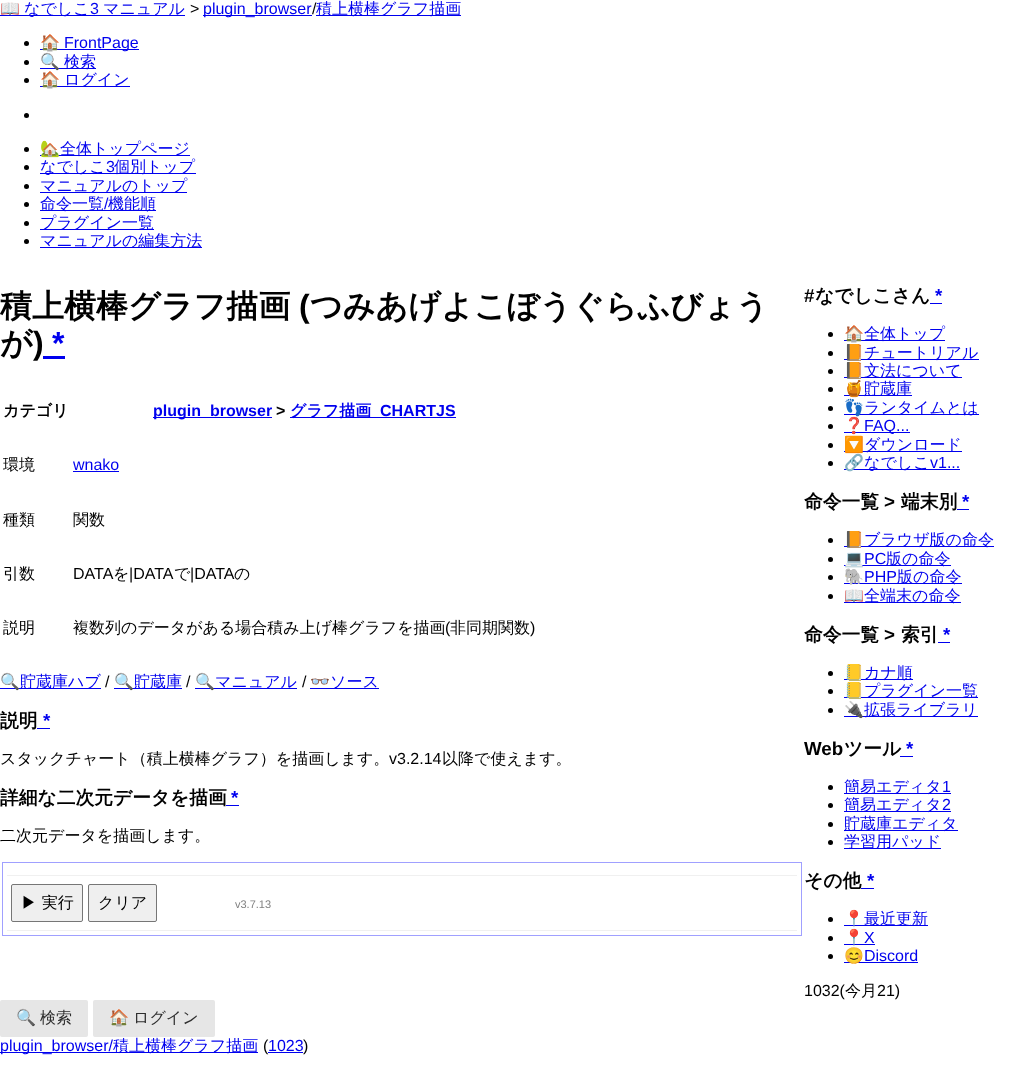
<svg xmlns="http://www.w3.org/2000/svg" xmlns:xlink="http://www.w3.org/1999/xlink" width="1016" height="1086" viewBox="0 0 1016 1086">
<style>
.cls-1{font:16px Noto Color Emoji;fill:#0000ee}
.cls-2{font:500 16px WenQuanYi Zen Hei;fill:#0000ee}
.cls-3{font:16px Liberation Sans;fill:#0000ee}
.cls-4{font:16px Liberation Sans;fill:#000000}
.cls-5{font:bold 32px WenQuanYi Zen Hei;fill:#000000}
.cls-6{font:bold 32px Liberation Sans;fill:#000000}
.cls-7{font:bold 32px Liberation Sans;fill:#0000ee}
.cls-8{font:bold 16px WenQuanYi Zen Hei;fill:#000000}
.cls-9{font:bold 16px Liberation Sans;fill:#0000ee}
.cls-10{font:bold 16px Liberation Sans;fill:#000000}
.cls-11{font:bold 16px WenQuanYi Zen Hei;fill:#0000ee}
.cls-12{font:500 16px WenQuanYi Zen Hei;fill:#000000}
.cls-13{font:bold 18.75px WenQuanYi Zen Hei;fill:#000000}
.cls-14{font:bold 18.75px Liberation Sans;fill:#0000ee}
.cls-15{font:11px Liberation Sans;fill:#808080}
.cls-16{font:bold 18.75px Liberation Sans;fill:#000000}
.cls-17{font:16px Noto Color Emoji;fill:#2e2e2e}
.cls-18{font:500 16px WenQuanYi Zen Hei;fill:#2e2e2e}
</style>
<rect width="100%" height="100%" fill="#ffffff"/>
<rect fill="#0000ee" x="0" y="15" width="185" height="1"/>
<rect fill="#0000ee" x="203" y="15" width="109" height="1"/>
<rect fill="#0000ee" x="316" y="15" width="145" height="1"/>
<circle fill="#000000" cx="26.5" cy="43.5" r="2.5"/>
<rect fill="#0000ee" x="40" y="49" width="99" height="1"/>
<circle fill="#000000" cx="26.5" cy="62.5" r="2.5"/>
<rect fill="#0000ee" x="40" y="68" width="56" height="1"/>
<circle fill="#000000" cx="26.5" cy="80.5" r="2.5"/>
<rect fill="#0000ee" x="40" y="86" width="90" height="1"/>
<circle fill="#000000" cx="26.5" cy="115.5" r="2.5"/>
<circle fill="#000000" cx="26.5" cy="149.5" r="2.5"/>
<rect fill="#0000ee" x="40" y="155" width="150" height="1"/>
<circle fill="#000000" cx="26.5" cy="167.5" r="2.5"/>
<rect fill="#0000ee" x="40" y="173" width="156" height="1"/>
<circle fill="#000000" cx="26.5" cy="186.5" r="2.5"/>
<rect fill="#0000ee" x="40" y="192" width="147" height="1"/>
<circle fill="#000000" cx="26.5" cy="204.5" r="2.5"/>
<rect fill="#0000ee" x="40" y="210" width="116" height="1"/>
<circle fill="#000000" cx="26.5" cy="223.5" r="2.5"/>
<rect fill="#0000ee" x="40" y="229" width="114" height="1"/>
<circle fill="#000000" cx="26.5" cy="241.5" r="2.5"/>
<rect fill="#0000ee" x="40" y="247" width="162" height="1"/>
<rect fill="#0000ee" x="43" y="356" width="22" height="3"/>
<rect fill="#0000ee" x="153" y="417" width="119" height="1"/>
<rect fill="#0000ee" x="290" y="417" width="166" height="1"/>
<rect fill="#0000ee" x="73" y="471" width="46" height="1"/>
<rect fill="#0000ee" x="0" y="688" width="101" height="1"/>
<rect fill="#0000ee" x="114" y="688" width="68" height="1"/>
<rect fill="#0000ee" x="195" y="688" width="102" height="1"/>
<rect fill="#0000ee" x="310" y="688" width="69" height="1"/>
<rect fill="#0000ee" x="37" y="728" width="13" height="1"/>
<rect fill="#0000ee" x="226" y="805" width="13" height="1"/>
<rect fill="none" stroke="#a0a0ff" x="2.5" y="862.5" width="799" height="73"/>
<rect fill="#f0f0f0" x="7" y="875" width="790" height="1"/>
<rect fill="#f0f0f0" x="7" y="930" width="790" height="1"/>
<rect fill="#efefef" stroke="#767676" x="11.5" y="884.5" width="71" height="37" rx="1.5"/>
<rect fill="#efefef" stroke="#767676" x="88.5" y="884.5" width="68" height="37" rx="1.5"/>
<rect fill="#0000ee" x="930" y="303" width="12" height="1"/>
<circle fill="#000000" cx="830.5" cy="334.5" r="2.5"/>
<rect fill="#0000ee" x="844" y="340" width="101" height="1"/>
<circle fill="#000000" cx="830.5" cy="353.5" r="2.5"/>
<rect fill="#0000ee" x="844" y="359" width="135" height="1"/>
<circle fill="#000000" cx="830.5" cy="371.5" r="2.5"/>
<rect fill="#0000ee" x="844" y="377" width="118" height="1"/>
<circle fill="#000000" cx="830.5" cy="389.5" r="2.5"/>
<rect fill="#0000ee" x="844" y="395" width="68" height="1"/>
<circle fill="#000000" cx="830.5" cy="408.5" r="2.5"/>
<rect fill="#0000ee" x="844" y="414" width="135" height="1"/>
<circle fill="#000000" cx="830.5" cy="426.5" r="2.5"/>
<rect fill="#0000ee" x="844" y="432" width="66" height="1"/>
<circle fill="#000000" cx="830.5" cy="445.5" r="2.5"/>
<rect fill="#0000ee" x="844" y="451" width="118" height="1"/>
<circle fill="#000000" cx="830.5" cy="463.5" r="2.5"/>
<rect fill="#0000ee" x="844" y="469" width="116" height="1"/>
<rect fill="#0000ee" x="957" y="509" width="12" height="1"/>
<circle fill="#000000" cx="830.5" cy="540.5" r="2.5"/>
<rect fill="#0000ee" x="844" y="546" width="150" height="1"/>
<circle fill="#000000" cx="830.5" cy="559.5" r="2.5"/>
<rect fill="#0000ee" x="844" y="565" width="107" height="1"/>
<circle fill="#000000" cx="830.5" cy="577.5" r="2.5"/>
<rect fill="#0000ee" x="844" y="583" width="118" height="1"/>
<circle fill="#000000" cx="830.5" cy="596.5" r="2.5"/>
<rect fill="#0000ee" x="844" y="602" width="117" height="1"/>
<rect fill="#0000ee" x="938" y="642" width="12" height="1"/>
<circle fill="#000000" cx="830.5" cy="673.5" r="2.5"/>
<rect fill="#0000ee" x="844" y="679" width="69" height="1"/>
<circle fill="#000000" cx="830.5" cy="691.5" r="2.5"/>
<rect fill="#0000ee" x="844" y="697" width="134" height="1"/>
<circle fill="#000000" cx="830.5" cy="710.5" r="2.5"/>
<rect fill="#0000ee" x="844" y="716" width="134" height="1"/>
<circle fill="#000000" cx="830.5" cy="787.5" r="2.5"/>
<rect fill="#0000ee" x="844" y="793" width="107" height="1"/>
<circle fill="#000000" cx="830.5" cy="805.5" r="2.5"/>
<rect fill="#0000ee" x="844" y="811" width="107" height="1"/>
<circle fill="#000000" cx="830.5" cy="824.5" r="2.5"/>
<rect fill="#0000ee" x="844" y="830" width="114" height="1"/>
<circle fill="#000000" cx="830.5" cy="842.5" r="2.5"/>
<rect fill="#0000ee" x="844" y="848" width="97" height="1"/>
<circle fill="#000000" cx="830.5" cy="919.5" r="2.5"/>
<rect fill="#0000ee" x="844" y="925" width="84" height="1"/>
<circle fill="#000000" cx="830.5" cy="938.5" r="2.5"/>
<rect fill="#0000ee" x="844" y="944" width="31" height="1"/>
<circle fill="#000000" cx="830.5" cy="956.5" r="2.5"/>
<rect fill="#0000ee" x="844" y="962" width="74" height="1"/>
<rect fill="#e6e6e6" x="0" y="1000" width="88" height="37" rx="2"/>
<rect fill="#e6e6e6" x="93" y="1000" width="122" height="37" rx="2"/>
<rect fill="#0000ee" x="0" y="1052" width="258" height="1"/>
<rect fill="#0000ee" x="268" y="1052" width="35" height="1"/>
<text class="cls-1" x="0" y="14">📖</text>
<text class="cls-2" x="24" y="14">なでしこ</text>
<text class="cls-3" x="90" y="14">3</text>
<text class="cls-2" x="103" y="14">マニュアル</text>
<text class="cls-4" x="190" y="14">&gt;</text>
<text class="cls-3" x="203" y="14">plugin_browser</text>
<text class="cls-4" x="312" y="14">/</text>
<text class="cls-2" x="316" y="14">積上横棒グラフ描画</text>
<text class="cls-1" x="40" y="48">🏠</text>
<text class="cls-3" x="64" y="48">FrontPage</text>
<text class="cls-1" x="40" y="67">🔍</text>
<text class="cls-2" x="64" y="67">検索</text>
<text class="cls-1" x="40" y="85">🏠</text>
<text class="cls-2" x="64" y="85">ログイン</text>
<text class="cls-1" x="40" y="154">🏡</text>
<text class="cls-2" x="60" y="154">全体トップページ</text>
<text class="cls-2" x="40" y="172">なでしこ</text>
<text class="cls-3" x="106" y="172">3</text>
<text class="cls-2" x="114" y="172">個別トップ</text>
<text class="cls-2"><tspan x="40" y="191">マニュアルのトップ</tspan><tspan x="40" y="209">命令一覧</tspan></text>
<text class="cls-3" x="104" y="209">/</text>
<text class="cls-2" x="108" y="209">機能順</text>
<text class="cls-2"><tspan x="40" y="228">プラグイン一覧</tspan><tspan x="40" y="246">マニュアルの編集方法</tspan></text>
<text class="cls-5" x="0" y="317">積上横棒グラフ描画</text>
<text class="cls-6" x="299" y="317">(</text>
<text class="cls-5" x="310" y="317">つみあげよこぼうぐらふびょう</text>
<text class="cls-5" x="0" y="354">が</text>
<text class="cls-6" x="33" y="354">)</text>
<text class="cls-7" x="52" y="354">*</text>
<text class="cls-8" x="3" y="416">カテゴリ</text>
<text class="cls-9" x="153" y="416">plugin_browser</text>
<text class="cls-10" x="276" y="416">&gt;</text>
<text class="cls-11" x="290" y="416">グラフ描画</text>
<text class="cls-9" x="380" y="416">CHARTJS</text>
<text class="cls-12" x="3" y="470">環境</text>
<text class="cls-3" x="73" y="470">wnako</text>
<text class="cls-12" x="3" y="525">種類</text>
<text class="cls-12" x="73" y="525">関数</text>
<text class="cls-12" x="3" y="579">引数</text>
<text class="cls-4" x="73" y="579">DATA</text>
<text class="cls-12" x="113" y="579">を</text>
<text class="cls-4" x="129" y="579">|DATA</text>
<text class="cls-12" x="174" y="579">で</text>
<text class="cls-4" x="190" y="579">|DATA</text>
<text class="cls-12" x="234" y="579">の</text>
<text class="cls-12" x="3" y="633">説明</text>
<text class="cls-12" x="73" y="633">複数列のデータがある場合積み上げ棒グラフを描画</text>
<text class="cls-4" x="445" y="633">(</text>
<text class="cls-12" x="450" y="633">非同期関数</text>
<text class="cls-4" x="530" y="633">)</text>
<text class="cls-1" x="0" y="687">🔍</text>
<text class="cls-2" x="20" y="687">貯蔵庫ハブ</text>
<text class="cls-4" x="105" y="687">/</text>
<text class="cls-1" x="114" y="687">🔍</text>
<text class="cls-2" x="134" y="687">貯蔵庫</text>
<text class="cls-4" x="186" y="687">/</text>
<text class="cls-1" x="195" y="687">🔍</text>
<text class="cls-2" x="215" y="687">マニュアル</text>
<text class="cls-4" x="302" y="687">/</text>
<text class="cls-1" x="310" y="687">👓</text>
<text class="cls-2" x="330" y="687">ソース</text>
<text class="cls-13" x="0" y="727">説明</text>
<text class="cls-14" x="43" y="727">*</text>
<text class="cls-12" x="0" y="764">スタックチャート（積上横棒グラフ）を描画します。</text>
<text class="cls-4" x="389" y="764">v3.2.14</text>
<text class="cls-12" x="442" y="764">以降で使えます。</text>
<text class="cls-13" x="0" y="804">詳細な二次元データを描画</text>
<text class="cls-14" x="231" y="804">*</text>
<text class="cls-12" x="0" y="841">二次元データを描画します。</text>
<text class="cls-12" x="21" y="908">▶ 実行</text>
<text class="cls-12" x="98" y="908">クリア</text>
<text class="cls-15" x="235" y="908">v3.7.13</text>
<text class="cls-16" x="804" y="302">#</text>
<text class="cls-13" x="815" y="302">なでしこさん</text>
<text class="cls-14" x="935" y="302">*</text>
<text class="cls-1" x="844" y="339">🏠</text>
<text class="cls-2" x="864" y="339">全体トップ</text>
<text class="cls-1" x="844" y="358">📙</text>
<text class="cls-2" x="864" y="358">チュートリアル</text>
<text class="cls-1" x="844" y="376">📙</text>
<text class="cls-2" x="864" y="376">文法について</text>
<text class="cls-1" x="844" y="394">🍯</text>
<text class="cls-2" x="864" y="394">貯蔵庫</text>
<text class="cls-1" x="844" y="413">👣</text>
<text class="cls-2" x="864" y="413">ランタイムとは</text>
<text class="cls-1" x="844" y="431">❓</text>
<text class="cls-3" x="864" y="431">FAQ...</text>
<text class="cls-1" x="844" y="450">🔽</text>
<text class="cls-2" x="864" y="450">ダウンロード</text>
<text class="cls-1" x="844" y="468">🔗</text>
<text class="cls-2" x="864" y="468">なでしこ</text>
<text class="cls-3" x="930" y="468">v1...</text>
<text class="cls-13" x="804" y="508">命令一覧</text>
<text class="cls-16" x="884" y="508">&gt;</text>
<text class="cls-13" x="901" y="508">端末別</text>
<text class="cls-14" x="962" y="508">*</text>
<text class="cls-1" x="844" y="545">📙</text>
<text class="cls-2" x="864" y="545">ブラウザ版の命令</text>
<text class="cls-1" x="844" y="564">💻</text>
<text class="cls-3" x="864" y="564">PC</text>
<text class="cls-2" x="886" y="564">版の命令</text>
<text class="cls-1" x="844" y="582">🐘</text>
<text class="cls-3" x="864" y="582">PHP</text>
<text class="cls-2" x="897" y="582">版の命令</text>
<text class="cls-1" x="844" y="601">📖</text>
<text class="cls-2" x="864" y="601">全端末の命令</text>
<text class="cls-13" x="804" y="641">命令一覧</text>
<text class="cls-16" x="884" y="641">&gt;</text>
<text class="cls-13" x="901" y="641">索引</text>
<text class="cls-14" x="943" y="641">*</text>
<text class="cls-1" x="844" y="678">📒</text>
<text class="cls-2" x="864" y="678">カナ順</text>
<text class="cls-1" x="844" y="696">📒</text>
<text class="cls-2" x="864" y="696">プラグイン一覧</text>
<text class="cls-1" x="844" y="715">🔌</text>
<text class="cls-2" x="864" y="715">拡張ライブラリ</text>
<text class="cls-16" x="804" y="755">Web</text>
<text class="cls-13" x="844" y="755">ツール</text>
<text class="cls-14" x="906" y="755">*</text>
<rect fill="#0000ee" x="900" y="756" width="13" height="1"/>
<text class="cls-2" x="844" y="792">簡易エディタ</text>
<text class="cls-3" x="942" y="792">1</text>
<text class="cls-2" x="844" y="810">簡易エディタ</text>
<text class="cls-3" x="942" y="810">2</text>
<text class="cls-2"><tspan x="844" y="829">貯蔵庫エディタ</tspan><tspan x="844" y="847">学習用パッド</tspan></text>
<text class="cls-13" x="804" y="887">その他</text>
<text class="cls-14" x="867" y="887">*</text>
<rect fill="#0000ee" x="861" y="888" width="13" height="1"/>
<text class="cls-1" x="844" y="924">📍</text>
<text class="cls-2" x="864" y="924">最近更新</text>
<text class="cls-1" x="844" y="943">📍</text>
<text class="cls-3" x="864" y="943">X</text>
<text class="cls-1" x="844" y="961">😊</text>
<text class="cls-3" x="864" y="961">Discord</text>
<text class="cls-4" x="804" y="996">1032(</text>
<text class="cls-12" x="845" y="996">今月</text>
<text class="cls-4" x="877" y="996">21)</text>
<text class="cls-17" x="16" y="1023">🔍</text>
<text class="cls-18" x="40" y="1023">検索</text>
<text class="cls-17" x="109" y="1023">🏠</text>
<text class="cls-18" x="133" y="1023">ログイン</text>
<text class="cls-3" x="0" y="1051">plugin_browser/</text>
<text class="cls-2" x="113" y="1051">積上横棒グラフ描画</text>
<text class="cls-4" x="263" y="1051">(</text>
<text class="cls-3" x="268" y="1051">1023</text>
<text class="cls-4" x="303" y="1051">)</text>
</svg>
